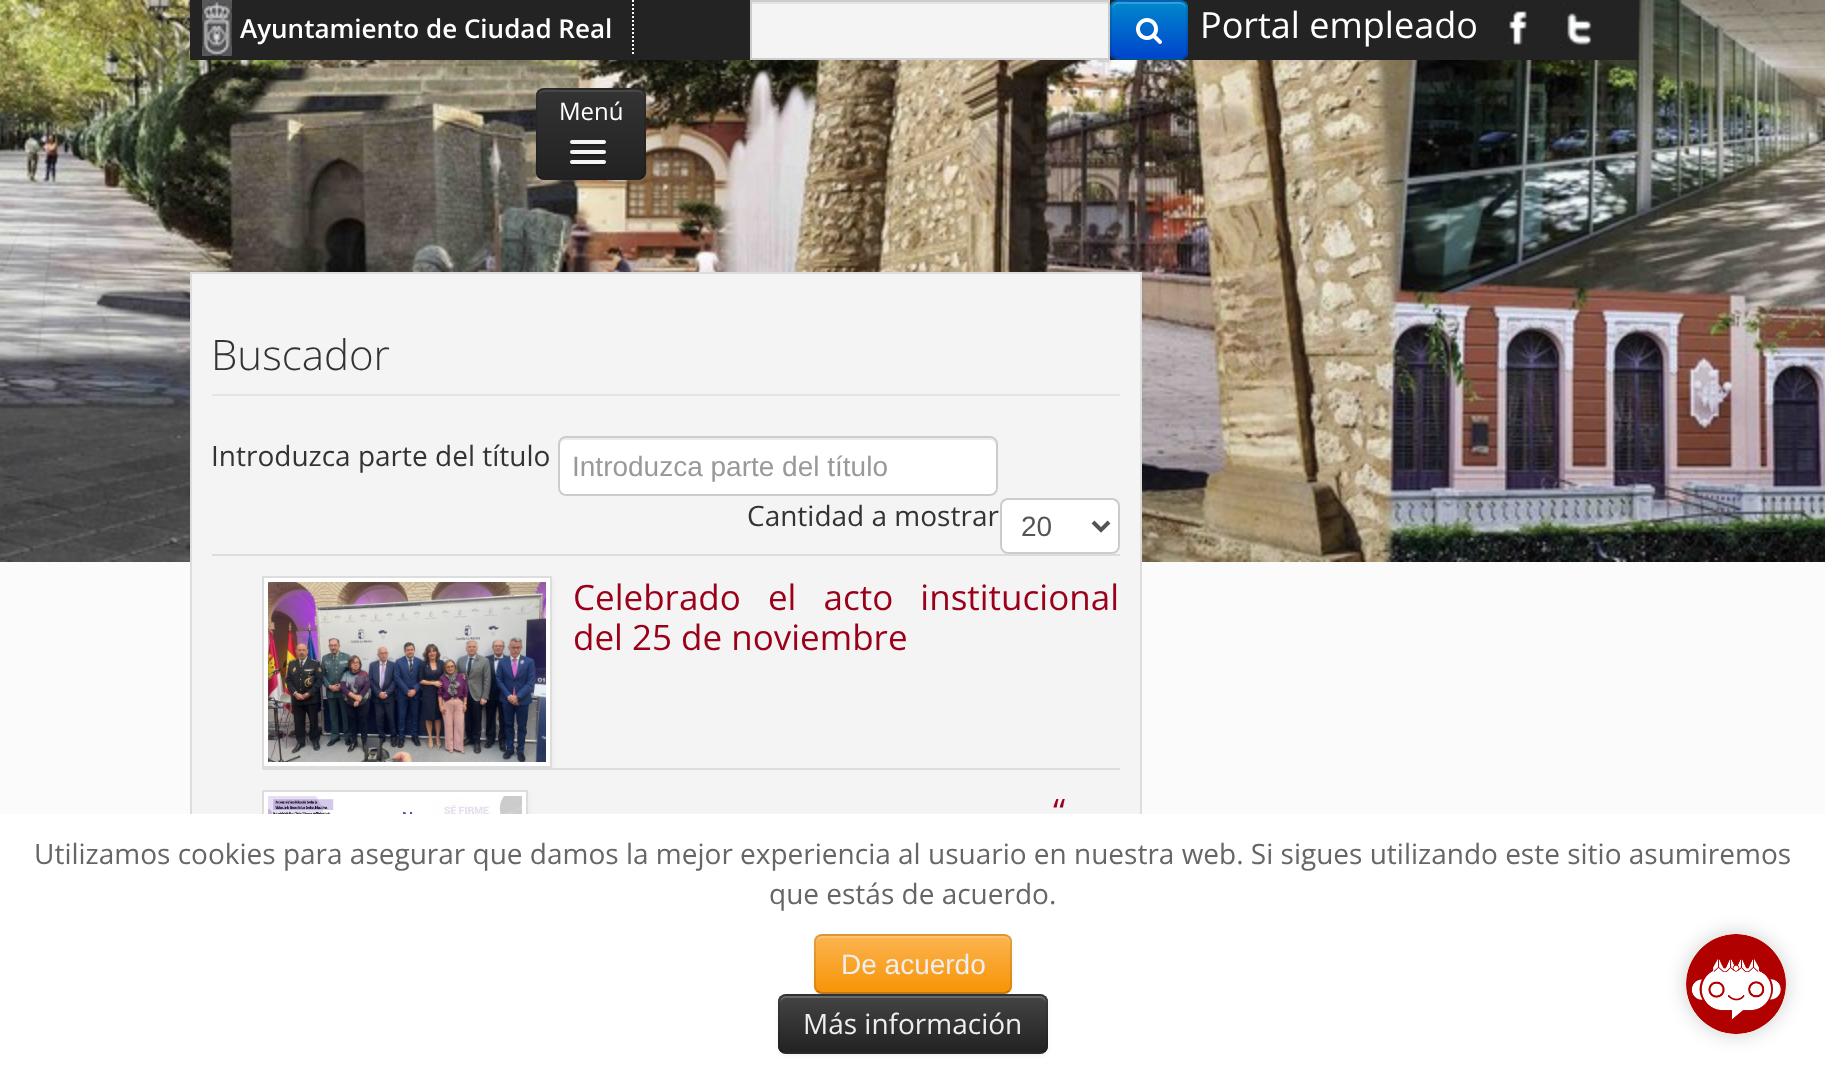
<svg xmlns="http://www.w3.org/2000/svg" xmlns:xlink="http://www.w3.org/1999/xlink" width="1825" height="1074" viewBox="0 0 1825 1074">
<style>
.cls-1{font:600 26px Open Sans;fill:#ffffff}
.cls-2{font:36px Open Sans;fill:#ffffff}
.cls-3{font:24px Open Sans;fill:#ffffff}
.cls-4{font:300 42px Open Sans;fill:#333333}
.cls-5{font:28px Open Sans;fill:#333333}
.cls-6{font:28px Liberation Sans;fill:#999999}
.cls-7{font:28px Liberation Sans;fill:#555555}
.cls-8{font:35px Open Sans;fill:#9a0019}
.cls-9{font:28px Open Sans;fill:#666666}
.cls-10{font:28px Liberation Sans;fill:#eeeeee}
.cls-11{font:28px Open Sans;fill:#eeeeee}
</style>
<defs>
<clipPath id="clip1"><rect x="1110" y="0" width="78" height="60" rx="8"/></clipPath>
<linearGradient id="g1" gradientUnits="userSpaceOnUse" x1="1149" y1="2" x2="1149" y2="58"><stop offset="0" stop-color="#0088cc"/><stop offset="1" stop-color="#0044cc"/></linearGradient>
<clipPath id="clip2"><rect x="536" y="88" width="110" height="92" rx="8"/></clipPath>
<linearGradient id="g2" gradientUnits="userSpaceOnUse" x1="591" y1="90" x2="591" y2="178"><stop offset="0" stop-color="#333333"/><stop offset="1" stop-color="#222222"/></linearGradient>
<clipPath id="clip3"><rect x="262" y="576" width="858" height="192"/></clipPath>
<clipPath id="clip4"><rect x="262" y="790" width="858" height="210"/></clipPath>
<clipPath id="clip5"><rect x="814" y="934" width="198" height="60" rx="8"/></clipPath>
<linearGradient id="g3" gradientUnits="userSpaceOnUse" x1="913" y1="936" x2="913" y2="992"><stop offset="0" stop-color="#fbb450"/><stop offset="1" stop-color="#f89406"/></linearGradient>
<clipPath id="clip6"><rect x="778" y="994" width="270" height="60" rx="8"/></clipPath>
<linearGradient id="g4" gradientUnits="userSpaceOnUse" x1="913" y1="996" x2="913" y2="1052"><stop offset="0" stop-color="#444444"/><stop offset="1" stop-color="#222222"/></linearGradient>
</defs>
<rect width="100%" height="100%" fill="#fbfbfb"/>
<image xlink:href="image0.png" x="0" y="0" width="1825" height="562"/>
<rect fill="#232323" x="190" y="0" width="1448" height="60"/>
<path fill="none" stroke="#ffffff" stroke-width="2" stroke-dasharray="2 2" d="M633 0V56"/>
<image xlink:href="image1.png" x="202" y="0" width="30" height="56"/>
<rect fill="#f4f4f4" x="752" y="4" width="356" height="54"/>
<rect fill="#e2e2e2" x="752" y="2" width="356" height="2"/>
<rect fill="none" stroke="#cccccc" stroke-width="2" x="751" y="1" width="358" height="58"/>
<rect fill="#006dcc" x="1110" y="0" width="78" height="60" rx="8"/>
<g clip-path="url(#clip1)">
<rect fill="url(#g1)" x="1110" y="2" width="78" height="56"/>
</g>
<path fill="#ffffff" fill-opacity="0.2" d="M1118 4H1180C1183 4 1186 7 1186 10C1186 0 1178 2 1170 2H1128C1120 2 1112 0 1112 10C1112 7 1115 4 1118 4Z"/>
<path fill="none" stroke="#000000" stroke-opacity="0.25" stroke-width="2" d="M1185 57C1183.5 58.5 1182 59 1180 59H1118C1116 59 1114.5 58.5 1113 57"/>
<path fill="none" stroke="#000000" stroke-opacity="0.1" stroke-width="2" d="M1113 57C1111.5 55.5 1111 54 1111 52V8C1111 6 1111.5 4.5 1113 3C1114.5 1.5 1116 1 1118 1H1180C1182 1 1183.5 1.5 1185 3C1186.5 4.5 1187 6 1187 8V52C1187 54 1186.5 55.5 1185 57"/>
<image xlink:href="image2.png" x="1136" y="18" width="26" height="26"/>
<image xlink:href="image3.png" x="1505" y="6" width="22" height="40"/>
<image xlink:href="image4.png" x="1560" y="4" width="33" height="44"/>
<path fill="#ffffff" fill-opacity="0.07" d="M536 172C536 186 549 182 560 182H622C633 182 646 186 646 172C646 176 642 180 638 180H544C540 180 536 176 536 172Z"/>
<rect fill="#2c2c2c" x="536" y="88" width="110" height="92" rx="8"/>
<g clip-path="url(#clip2)">
<rect fill="url(#g2)" x="536" y="90" width="110" height="88"/>
</g>
<path fill="#ffffff" fill-opacity="0.1" d="M544 92H638C641 92 644 95 644 98C644 86 632 90 622 90H560C550 90 538 86 538 98C538 95 541 92 544 92Z"/>
<path fill="none" stroke="#000000" stroke-opacity="0.25" stroke-width="2" d="M643 177C641.5 178.5 640 179 638 179H544C542 179 540.5 178.5 539 177"/>
<path fill="none" stroke="#000000" stroke-opacity="0.1" stroke-width="2" d="M539 177C535 173 537 162.5 537 159.5V108.5C537 86 536.5 89 559.5 89H622.5C645.5 89 645 86 645 108.5V159.5C645 162.5 647 173 643 177"/>
<path fill="#1e1e1e" d="M570.5 143C568 147 577 146 577.5 146H598.5C599 146 608 147 605.5 143C605.5 143.5 604.5 144 604 144H572C571.5 144 570.5 143.5 570.5 143Z"/>
<rect fill="#f5f5f5" x="570" y="140" width="36" height="4" rx="2"/>
<path fill="#1d1d1d" d="M570.5 153C568 157 577 156 577.5 156H598.5C599 156 608 157 605.5 153C605.5 153.5 604.5 154 604 154H572C571.5 154 570.5 153.5 570.5 153Z"/>
<rect fill="#f5f5f5" x="570" y="150" width="36" height="4" rx="2"/>
<path fill="#1b1b1b" d="M570.5 163C568 167 577 166 577.5 166H598.5C599 166 608 167 605.5 163C605.5 163.5 604.5 164 604 164H572C571.5 164 570.5 163.5 570.5 163Z"/>
<rect fill="#f5f5f5" x="570" y="160" width="36" height="4" rx="2"/>
<rect fill="#f4f4f4" x="192" y="274" width="948" height="540"/>
<rect fill="none" stroke="#dddddd" stroke-width="2" x="191" y="273" width="950" height="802"/>
<rect fill="#e5e5e5" x="212" y="394" width="908" height="2"/>
<rect fill="#ffffff" x="558" y="436" width="440" height="60" rx="8"/>
<path fill="#ececec" d="M566 440H990C993 440 996 443 996 446V444C996 441 993 438 990 438H566C563 438 560 441 560 444V446C560 443 563 440 566 440Z"/>
<rect fill="none" stroke="#cccccc" stroke-width="2" x="559" y="437" width="438" height="58" rx="7"/>
<rect fill="#ffffff" stroke="#cccccc" stroke-width="2" x="1001" y="499" width="118" height="54" rx="7"/>
<path fill="none" stroke="#555555" stroke-width="4" d="M1093 522L1101 530L1109 522"/>
<rect fill="#dddddd" x="212" y="554" width="908" height="2"/>
<rect fill="#dddddd" x="262" y="768" width="858" height="2"/>
<g clip-path="url(#clip3)">
<rect fill="#000000" fill-opacity="0.06" filter="blur(3px)" x="262" y="578" width="290" height="192"/>
</g>
<rect fill="#ffffff" stroke="#dddddd" stroke-width="2" x="263" y="577" width="288" height="190"/>
<image xlink:href="image5.png" x="268" y="582" width="278" height="180"/>
<g clip-path="url(#clip4)">
<rect fill="#000000" fill-opacity="0.06" filter="blur(3px)" x="262" y="792" width="266" height="192"/>
</g>
<rect fill="#ffffff" x="264" y="792" width="262" height="22"/>
<rect fill="none" stroke="#dddddd" stroke-width="2" x="263" y="791" width="264" height="190"/>
<image xlink:href="image6.png" x="268" y="796" width="254" height="18"/>
<rect fill="#ffffff" x="0" y="814" width="1825" height="260"/>
<rect fill="#000000" fill-opacity="0.05" filter="blur(2px)" x="814" y="936" width="198" height="60" rx="8"/>
<rect fill="#faa732" x="814" y="934" width="198" height="60" rx="8"/>
<g clip-path="url(#clip5)">
<rect fill="url(#g3)" x="814" y="936" width="198" height="56"/>
</g>
<path fill="#ffffff" fill-opacity="0.2" d="M822 938H1004C1007 938 1010 941 1010 944V942C1010 939 1007 936 1004 936H822C819 936 816 939 816 942V944C816 941 819 938 822 938Z"/>
<path fill="none" stroke="#000000" stroke-opacity="0.25" stroke-width="2" d="M1009 991C1007.5 992.5 1006 993 1004 993H822C820 993 818.5 992.5 817 991"/>
<path fill="none" stroke="#000000" stroke-opacity="0.1" stroke-width="2" d="M817 991C815.5 989.5 815 988 815 986V942C815 940 815.5 938.5 817 937C818.5 935.5 820 935 822 935H1004C1006 935 1007.5 935.5 1009 937C1010.5 938.5 1011 940 1011 942V986C1011 988 1010.5 989.5 1009 991"/>
<rect fill="#000000" fill-opacity="0.05" filter="blur(2px)" x="778" y="996" width="270" height="60" rx="8"/>
<rect fill="#363636" x="778" y="994" width="270" height="60" rx="8"/>
<g clip-path="url(#clip6)">
<rect fill="url(#g4)" x="778" y="996" width="270" height="56"/>
</g>
<path fill="#696969" d="M786 998H1040C1043 998 1046 1001 1046 1004C1046 1001 1045 997 1041 996H785C781 997 780 1001 780 1004C780 1001 783 998 786 998Z"/>
<path fill="none" stroke="#000000" stroke-opacity="0.25" stroke-width="2" d="M1045 1051C1043.5 1052.5 1042 1053 1040 1053H786C784 1053 782.5 1052.5 781 1051"/>
<path fill="none" stroke="#000000" stroke-opacity="0.1" stroke-width="2" d="M781 1051C779.5 1049.5 779 1048 779 1046V1002C779 1000 779.5 998.5 781 997C782.5 995.5 784 995 786 995H1040C1042 995 1043.5 995.5 1045 997C1046.5 998.5 1047 1000 1047 1002V1046C1047 1048 1046.5 1049.5 1045 1051"/>
<rect fill="#000000" fill-opacity="0.2" filter="blur(10px)" x="1686" y="934" width="100" height="100" rx="50"/>
<image xlink:href="image7.png" x="1686" y="934" width="100" height="100"/>
<text class="cls-1" x="240" y="38">Ayuntamiento de Ciudad Real</text>
<text class="cls-2" x="1200" y="38">Portal empleado</text>
<text class="cls-3" x="559" y="120">Menú</text>
<text class="cls-4" x="211" y="370">Buscador</text>
<text class="cls-5" x="211" y="466">Introduzca parte del título</text>
<text class="cls-6" x="572" y="476">Introduzca parte del título</text>
<text class="cls-5" x="747" y="526">Cantidad a mostrar</text>
<text class="cls-7" x="1021" y="536">20</text>
<text class="cls-8"><tspan x="573" y="610" word-spacing="18">Celebrado el acto institucional</tspan><tspan x="573" y="650">del 25 de noviembre</tspan></text>
<text class="cls-8" x="1053" y="824" word-spacing="6">“</text>
<text class="cls-9" x="34" y="864">Utilizamos cookies para asegurar que damos la mejor experiencia al usuario en nuestra web. Si sigues utilizando este sitio asumiremos</text>
<text class="cls-9" x="769" y="904">que estás de acuerdo.</text>
<text class="cls-10" x="841" y="974">De acuerdo</text>
<text class="cls-11" x="803" y="1034">Más información</text>
</svg>
